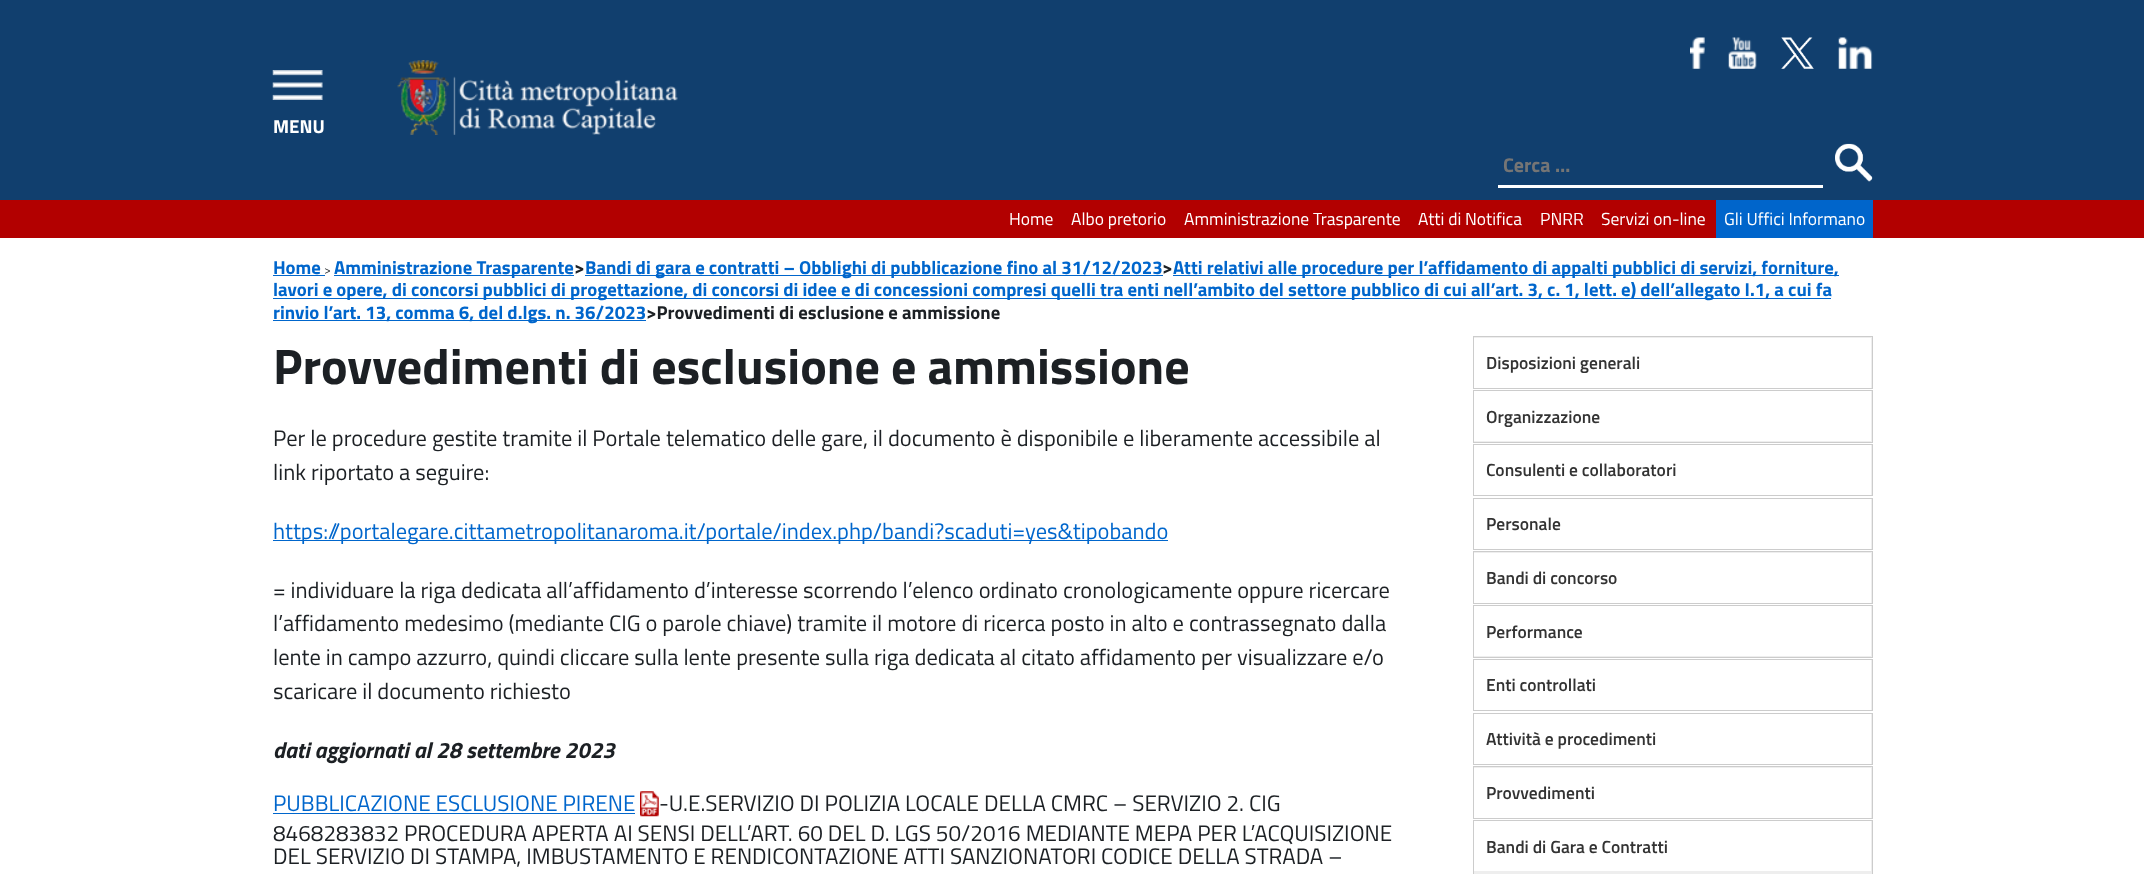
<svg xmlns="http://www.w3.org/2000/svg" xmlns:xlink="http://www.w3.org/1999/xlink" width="2144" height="874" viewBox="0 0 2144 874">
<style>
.cls-1{font:bold 18.75px Titillium Web;fill:#ffffff}
.cls-2{font:bold 20px Titillium Web;fill:#757575}
.cls-3{font:17.5px Titillium Web;fill:#ffffff}
.cls-4{font:bold 18.75px Titillium Web;fill:#0066cc}
.cls-5{font:12px Titillium Web;fill:#1c2024}
.cls-6{font:bold 18.75px Titillium Web;fill:#1c2024}
.cls-7{font:bold 50px Titillium Web;fill:#1c2024}
.cls-8{font:22.5px Titillium Web;fill:#1c2024}
.cls-9{font:22.5px Titillium Web;fill:#0066cc}
.cls-10{font:italic bold 22.5px Titillium Web;fill:#1c2024}
.cls-11{font:600 17.5px Titillium Web;fill:#333333}
</style>
<rect width="100%" height="100%" fill="#ffffff"/>
<rect fill="#113f6e" x="0" y="0" width="2144" height="200"/>
<image xlink:href="image0.png" x="1690" y="37" width="15" height="32"/>
<image xlink:href="image1.png" x="1728" y="37" width="29" height="32"/>
<image xlink:href="image2.png" x="1781" y="37" width="33" height="32"/>
<image xlink:href="image3.png" x="1838" y="37" width="35" height="32"/>
<image xlink:href="image4.png" x="272" y="70" width="51" height="30"/>
<image xlink:href="image5.png" x="397" y="60" width="281" height="75"/>
<rect fill="#ffffff" x="1498" y="185" width="325" height="3"/>
<image xlink:href="image6.png" x="1835" y="143" width="38" height="39"/>
<rect fill="#b20000" x="0" y="200" width="2144" height="38"/>
<rect fill="#0065cb" x="1716" y="200" width="157" height="38"/>
<rect fill="#0066cc" x="273" y="275" width="52" height="1"/>
<rect fill="#0066cc" x="334" y="275" width="240" height="1"/>
<rect fill="#0066cc" x="585" y="275" width="578" height="1"/>
<rect fill="#0066cc" x="1173" y="275" width="666" height="1"/>
<rect fill="#0066cc" x="273" y="298" width="1558" height="1"/>
<rect fill="#0066cc" x="273" y="320" width="373" height="1"/>
<rect fill="#0066cc" x="273" y="540" width="895" height="1"/>
<rect fill="#0066cc" x="273" y="813" width="362" height="1"/>
<image xlink:href="image7.png" x="640" y="791" width="19" height="26"/>
<rect fill="#eeeeee" stroke="#cccccc" x="1473.5" y="336.5" width="399" height="52"/>
<rect fill="#ffffff" x="1474" y="338" width="397" height="50"/>
<rect fill="#eeeeee" stroke="#cccccc" x="1473.5" y="390.5" width="399" height="52"/>
<rect fill="#ffffff" x="1474" y="391" width="397" height="50"/>
<rect fill="#eeeeee" x="1871" y="445" width="1" height="50"/>
<rect fill="none" stroke="#cccccc" x="1473.5" y="444.5" width="399" height="51"/>
<rect fill="#eeeeee" x="1871" y="499" width="1" height="50"/>
<rect fill="none" stroke="#cccccc" x="1473.5" y="498.5" width="399" height="51"/>
<rect fill="#eeeeee" stroke="#cccccc" x="1473.5" y="551.5" width="399" height="52"/>
<rect fill="#ffffff" x="1474" y="553" width="397" height="50"/>
<rect fill="#eeeeee" stroke="#cccccc" x="1473.5" y="605.5" width="399" height="52"/>
<rect fill="#ffffff" x="1474" y="606" width="397" height="50"/>
<rect fill="#eeeeee" x="1871" y="660" width="1" height="50"/>
<rect fill="none" stroke="#cccccc" x="1473.5" y="659.5" width="399" height="51"/>
<rect fill="#eeeeee" x="1871" y="714" width="1" height="50"/>
<rect fill="none" stroke="#cccccc" x="1473.5" y="713.5" width="399" height="51"/>
<rect fill="#eeeeee" stroke="#cccccc" x="1473.5" y="766.5" width="399" height="52"/>
<rect fill="#ffffff" x="1474" y="768" width="397" height="50"/>
<rect fill="#eeeeee" stroke="#cccccc" x="1473.5" y="820.5" width="399" height="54"/>
<rect fill="#ffffff" x="1474" y="821" width="397" height="50"/>
<text class="cls-1" x="273" y="133">MENU</text>
<text class="cls-2" x="1503" y="172">Cerca …</text>
<text class="cls-3" x="1009" y="225">Home</text>
<text class="cls-3" x="1071" y="225">Albo pretorio</text>
<text class="cls-3" x="1184" y="225">Amministrazione Trasparente</text>
<text class="cls-3" x="1418" y="225">Atti di Notifica</text>
<text class="cls-3" x="1540" y="225">PNRR</text>
<text class="cls-3" x="1601" y="225">Servizi on-line</text>
<text class="cls-3" x="1724" y="225">Gli Uffici Informano</text>
<text class="cls-4" x="273" y="274">Home</text>
<text class="cls-5" x="324" y="274">&gt;</text>
<text class="cls-4" x="334" y="274">Amministrazione Trasparente</text>
<text class="cls-6" x="574" y="274">&gt;</text>
<text class="cls-4" x="585" y="274">Bandi di gara e contratti – Obblighi di pubblicazione fino al 31/12/2023</text>
<text class="cls-6" x="1162" y="274">&gt;</text>
<text class="cls-4" x="1173" y="274">Atti relativi alle procedure per l’affidamento di appalti pubblici di servizi, forniture,</text>
<text class="cls-4"><tspan x="273" y="296">lavori e opere, di concorsi pubblici di progettazione, di concorsi di idee e di concessioni compresi quelli tra enti nell’ambito del settore pubblico di cui all’art. 3, c. 1, lett. e) dell’allegato I.1, a cui fa</tspan><tspan x="273" y="319">rinvio l’art. 13, comma 6, del d.lgs. n. 36/2023</tspan></text>
<text class="cls-6" x="646" y="319">&gt;Provvedimenti di esclusione e ammissione</text>
<text class="cls-7" x="273" y="384">Provvedimenti di esclusione e ammissione</text>
<text class="cls-8"><tspan x="273" y="446">Per le procedure gestite tramite il Portale telematico delle gare, il documento è disponibile e liberamente accessibile al</tspan><tspan x="273" y="480">link riportato a seguire:</tspan></text>
<text class="cls-9" x="273" y="539">https://portalegare.cittametropolitanaroma.it/portale/index.php/bandi?scaduti=yes&amp;tipobando</text>
<text class="cls-8"><tspan x="273" y="598">= individuare la riga dedicata all’affidamento d’interesse scorrendo l’elenco ordinato cronologicamente oppure ricercare</tspan><tspan x="273" y="631">l’affidamento medesimo (mediante CIG o parole chiave) tramite il motore di ricerca posto in alto e contrassegnato dalla</tspan><tspan x="273" y="665">lente in campo azzurro, quindi cliccare sulla lente presente sulla riga dedicata al citato affidamento per visualizzare e/o</tspan><tspan x="273" y="699">scaricare il documento richiesto</tspan></text>
<text class="cls-10" x="273" y="758">dati aggiornati al 28 settembre 2023</text>
<text class="cls-9" x="273" y="811">PUBBLICAZIONE ESCLUSIONE PIRENE</text>
<text class="cls-8" x="659" y="811">-U.E.SERVIZIO DI POLIZIA LOCALE DELLA CMRC – SERVIZIO 2. CIG</text>
<text class="cls-8"><tspan x="273" y="841">8468283832 PROCEDURA APERTA AI SENSI DELL’ART. 60 DEL D. LGS 50/2016 MEDIANTE MEPA PER L’ACQUISIZIONE</tspan><tspan x="273" y="864">DEL SERVIZIO DI STAMPA, IMBUSTAMENTO E RENDICONTAZIONE ATTI SANZIONATORI CODICE DELLA STRADA –</tspan></text>
<text class="cls-11" x="1486" y="369">Disposizioni generali</text>
<text class="cls-11" x="1486" y="423">Organizzazione</text>
<text class="cls-11" x="1486" y="476">Consulenti e collaboratori</text>
<text class="cls-11" x="1486" y="530">Personale</text>
<text class="cls-11" x="1486" y="584">Bandi di concorso</text>
<text class="cls-11" x="1486" y="638">Performance</text>
<text class="cls-11" x="1486" y="691">Enti controllati</text>
<text class="cls-11" x="1486" y="745">Attività e procedimenti</text>
<text class="cls-11" x="1486" y="799">Provvedimenti</text>
<text class="cls-11" x="1486" y="853">Bandi di Gara e Contratti</text>
</svg>
